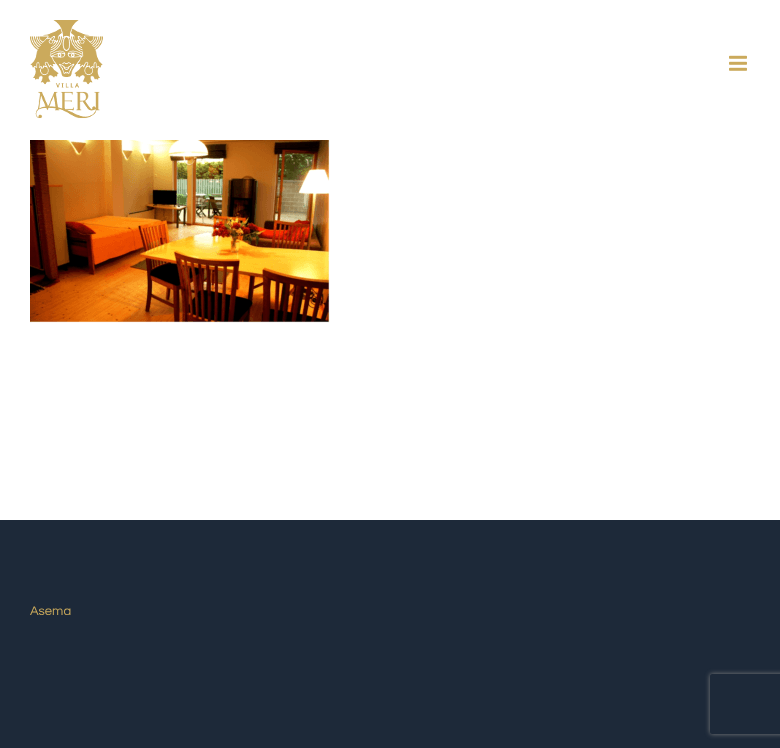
<svg xmlns="http://www.w3.org/2000/svg" xmlns:xlink="http://www.w3.org/1999/xlink" width="780" height="748" viewBox="0 0 780 748">
<style>
.cls-1{font:13px Questrial;fill:#cbaa5c}
</style>
<defs>
<clipPath id="clip1"><path d="M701 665H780V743H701ZM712 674H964C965 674 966 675 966 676V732C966 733 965 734 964 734H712C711 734 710 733 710 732V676C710 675 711 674 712 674Z" clip-rule="evenodd"/></clipPath>
</defs>
<rect width="100%" height="100%" fill="#ffffff"/>
<image xlink:href="image0.png" x="30" y="20" width="73" height="99"/>
<image xlink:href="image1.png" x="729" y="55" width="18" height="16"/>
<image xlink:href="image2.png" x="30" y="140" width="300" height="183"/>
<rect fill="#1d2939" x="0" y="520" width="780" height="228"/>
<g clip-path="url(#clip1)">
<rect fill="#808080" filter="blur(2.5px)" x="710" y="674" width="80" height="60" rx="2"/>
</g>
<text class="cls-1" x="30" y="615">Asema</text>
</svg>
